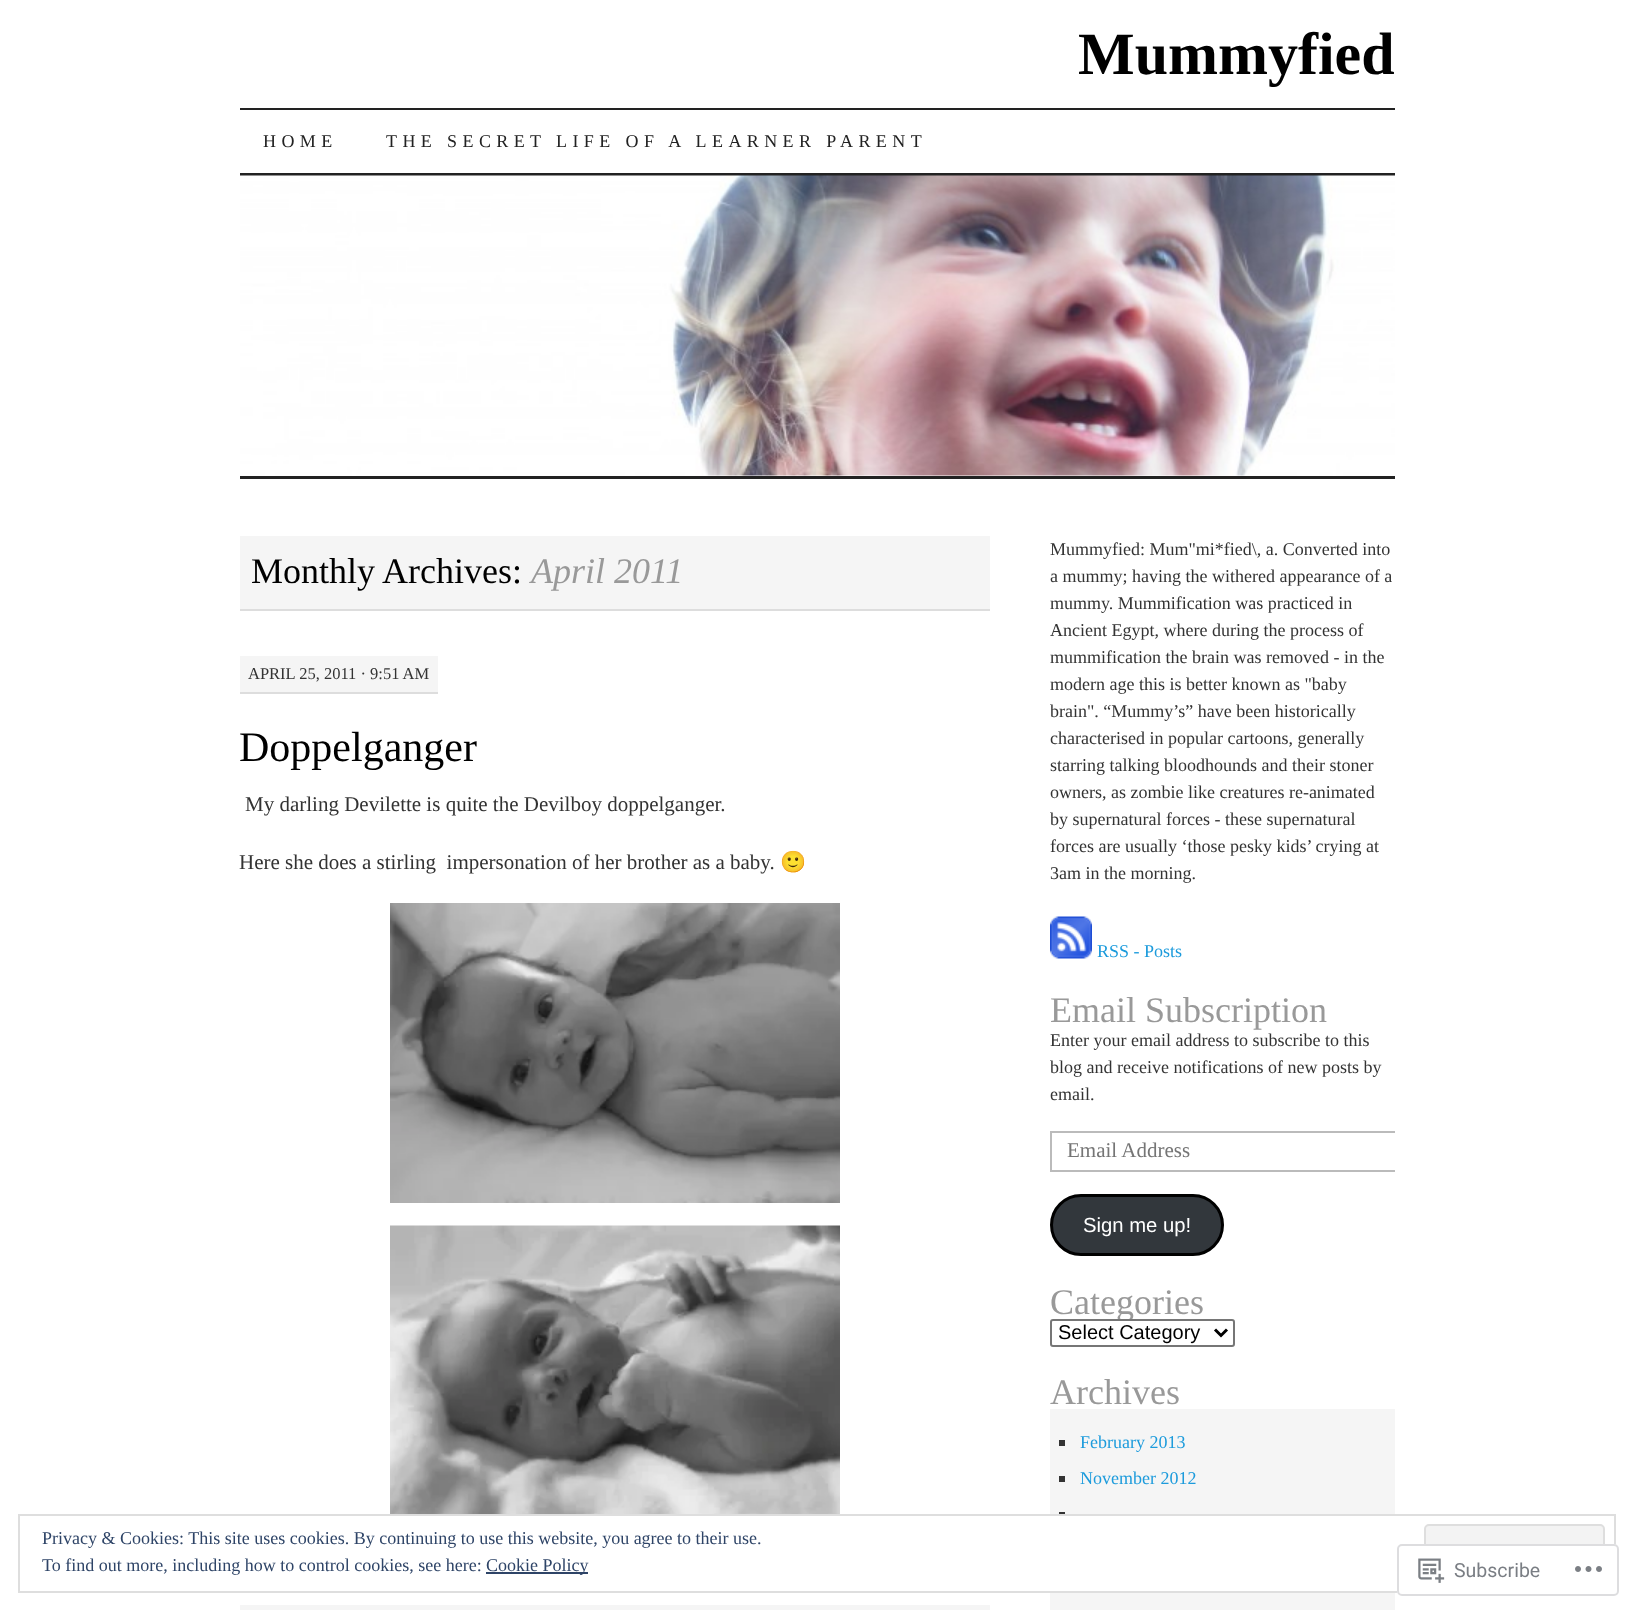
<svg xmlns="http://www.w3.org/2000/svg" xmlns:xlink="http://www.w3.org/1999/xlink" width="1633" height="1610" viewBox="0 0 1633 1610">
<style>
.cls-1{font:bold 60px Liberation Serif;fill:#000000}
.cls-2{font:18px Liberation Serif;letter-spacing:5.4px;fill:#222222}
.cls-3{font:36px Liberation Serif;fill:#000000}
.cls-4{font:italic 36px Liberation Serif;fill:#999999}
.cls-5{font:16.5px Liberation Serif;fill:#333333}
.cls-6{font:42px Liberation Serif;fill:#000000}
.cls-7{font:21px Liberation Serif;fill:#333333}
.cls-8{font:21px Noto Color Emoji;fill:#333333}
.cls-9{font:18px Liberation Serif;fill:#333333}
.cls-10{font:18px Liberation Serif;fill:#1c9bdc}
.cls-11{font:36px Liberation Serif;fill:#999999}
.cls-12{font:21px Liberation Serif;fill:#757575}
.cls-13{font:20.25px Liberation Sans;fill:#ffffff}
.cls-14{font:20px Liberation Sans;fill:#000000}
.cls-15{font:18px Liberation Serif;fill:#2e4467}
.cls-16{font:19.5px Roboto;fill:#7a7e84}
</style>
<defs>
<clipPath id="clip1"><rect x="1050" y="536" width="345" height="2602"/></clipPath>
</defs>
<rect width="100%" height="100%" fill="#ffffff"/>
<rect fill="#222222" x="240" y="108" width="1155" height="2"/>
<rect fill="#222222" x="240" y="173" width="1155" height="3"/>
<image xlink:href="image0.png" x="240" y="175" width="1155" height="301"/>
<rect fill="#222222" x="240" y="476" width="1155" height="3"/>
<rect fill="#f5f5f5" x="240" y="536" width="750" height="73"/>
<rect fill="#dddddd" x="240" y="609" width="750" height="2"/>
<rect fill="#f5f5f5" x="240" y="656" width="198" height="36"/>
<rect fill="#dddddd" x="240" y="692" width="198" height="2"/>
<image xlink:href="image1.png" x="390" y="903" width="450" height="300"/>
<image xlink:href="image2.png" x="390" y="1225" width="450" height="289"/>
<rect fill="#f5f5f5" x="240" y="1605" width="750" height="5"/>
<image xlink:href="image3.png" x="1050" y="916" width="42" height="43"/>
<g clip-path="url(#clip1)">
<rect fill="none" stroke="#bbbbbb" stroke-width="2" x="1051" y="1132" width="358" height="39"/>
</g>
<rect fill="#32373c" stroke="#000000" stroke-width="3" x="1051.5" y="1195.5" width="171" height="59" rx="29.5"/>
<rect fill="#f5f5f5" x="1050" y="1409" width="345" height="201"/>
<rect fill="#333333" x="1059" y="1440" width="6" height="6"/>
<rect fill="#333333" x="1059" y="1476" width="6" height="6"/>
<rect fill="#333333" x="1059" y="1512" width="6" height="2"/>
<rect fill="#ffffff" x="1050" y="1516" width="345" height="75"/>
<rect fill="none" stroke="#dedede" stroke-width="2" x="19" y="1515" width="1596" height="77"/>
<rect fill="#f3f3f3" stroke="#dedede" stroke-width="2" x="1425" y="1525" width="179" height="57" rx="4"/>
<rect fill="#2e4467" x="486" y="1572" width="102" height="2"/>
<rect fill="#ffffff" fill-opacity="0.98" x="1397" y="1544" width="222" height="52" rx="5"/>
<rect fill="none" stroke="#dcdcde" stroke-opacity="0.98" stroke-width="2" x="1398" y="1545" width="220" height="50" rx="4"/>
<image xlink:href="image4.png" x="1418" y="1558" width="27" height="25"/>
<image xlink:href="image5.png" x="1575" y="1566" width="27" height="6"/>
<text class="cls-1" x="1078" y="74">Mummyfied</text>
<text class="cls-2" x="263" y="147">HOME</text>
<text class="cls-2" x="386" y="147">THE SECRET LIFE OF A LEARNER PARENT</text>
<text class="cls-3" x="251" y="583">Monthly Archives:</text>
<text class="cls-4" x="531" y="583">April 2011</text>
<text class="cls-5" x="248" y="679">APRIL 25, 2011 · 9:51 AM</text>
<text class="cls-6" x="239" y="761">Doppelganger</text>
<text class="cls-7" x="245" y="811">My darling Devilette is quite the Devilboy doppelganger.</text>
<text class="cls-7" xml:space="preserve" x="239" y="869">Here she does a stirling  impersonation of her brother as a baby.</text>
<text class="cls-8" x="780" y="869">🙂</text>
<text class="cls-9"><tspan x="1050" y="555">Mummyfied: Mum"mi*fied\, a. Converted into</tspan><tspan x="1050" y="582">a mummy; having the withered appearance of a</tspan><tspan x="1050" y="609">mummy. Mummification was practiced in</tspan><tspan x="1050" y="636">Ancient Egypt, where during the process of</tspan><tspan x="1050" y="663">mummification the brain was removed - in the</tspan><tspan x="1050" y="690">modern age this is better known as "baby</tspan><tspan x="1050" y="717">brain". “Mummy’s” have been historically</tspan><tspan x="1050" y="744">characterised in popular cartoons, generally</tspan><tspan x="1050" y="771">starring talking bloodhounds and their stoner</tspan><tspan x="1050" y="798">owners, as zombie like creatures re-animated</tspan><tspan x="1050" y="825">by supernatural forces - these supernatural</tspan><tspan x="1050" y="852">forces are usually ‘those pesky kids’ crying at</tspan><tspan x="1050" y="879">3am in the morning.</tspan></text>
<text class="cls-10" x="1097" y="957">RSS - Posts</text>
<text class="cls-11" x="1050" y="1022">Email Subscription</text>
<text class="cls-9"><tspan x="1050" y="1046">Enter your email address to subscribe to this</tspan><tspan x="1050" y="1073">blog and receive notifications of new posts by</tspan><tspan x="1050" y="1100">email.</tspan></text>
<text class="cls-12" x="1067" y="1157">Email Address</text>
<text class="cls-13" x="1083" y="1232">Sign me up!</text>
<text class="cls-11" x="1050" y="1314">Categories</text>
<rect fill="#ffffff" stroke="#767676" stroke-width="2" x="1051" y="1320" width="183" height="26" rx="2"/>
<path fill="none" stroke="#000000" stroke-width="3" d="M1215 1329.5L1221 1335.5L1227 1329.5"/>
<text class="cls-14" x="1058" y="1339">Select Category</text>
<text class="cls-11" x="1050" y="1404">Archives</text>
<text class="cls-10" x="1080" y="1448">February 2013</text>
<text class="cls-10" x="1080" y="1484">November 2012</text>
<text class="cls-15"><tspan x="42" y="1544">Privacy &amp; Cookies: This site uses cookies. By continuing to use this website, you agree to their use.</tspan><tspan x="42" y="1571">To find out more, including how to control cookies, see here:</tspan></text>
<text class="cls-15" x="486" y="1571">Cookie Policy</text>
<text class="cls-16" x="1454" y="1577">Subscribe</text>
</svg>
